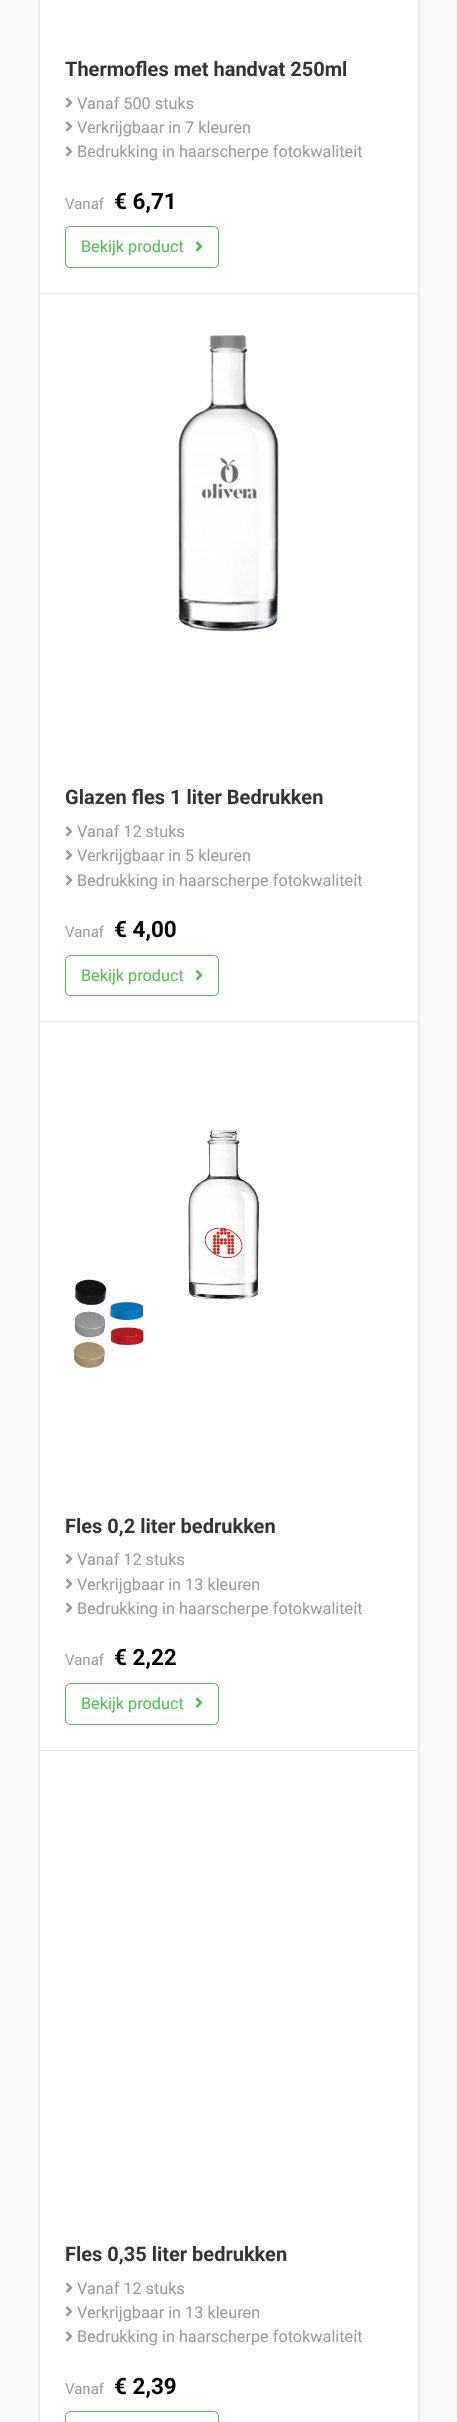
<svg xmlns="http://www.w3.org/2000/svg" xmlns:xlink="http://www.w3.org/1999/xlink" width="457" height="2422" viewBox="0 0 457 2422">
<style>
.cls-1{font:bold 20px Roboto;fill:#333333}
.cls-2{font:16.25px Roboto;fill:#999999}
.cls-3{font:15px Roboto;fill:#999999}
.cls-4{font:bold 22.5px Roboto;fill:#000000}
.cls-5{font:16.25px Roboto;fill:#4ebf4e}
</style>
<rect width="100%" height="100%" fill="#fafafa"/>
<rect fill="#ffffff" x="40" y="0" width="378" height="2422"/>
<rect fill="none" stroke="#eaeaea" x="38.5" y="-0.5" width="381" height="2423"/>
<rect fill="#eaeaea" x="418" y="0" width="1" height="2422"/>
<rect fill="#eaeaea" x="39" y="293" width="380" height="1"/>
<rect fill="#eaeaea" x="39" y="0" width="1" height="294"/>
<image xlink:href="image0.png" x="65" y="97" width="8" height="11"/>
<image xlink:href="image1.png" x="65" y="121" width="8" height="11"/>
<image xlink:href="image1.png" x="65" y="146" width="8" height="11"/>
<rect fill="none" stroke="#4ebf4e" x="65.5" y="226.5" width="153" height="41" rx="4.5"/>
<image xlink:href="image2.png" x="195" y="241" width="8" height="11"/>
<rect fill="#eaeaea" x="39" y="1021" width="380" height="1"/>
<rect fill="#eaeaea" x="39" y="294" width="1" height="729"/>
<image xlink:href="image3.png" x="178" y="335" width="101" height="297"/>
<image xlink:href="image1.png" x="65" y="826" width="8" height="11"/>
<image xlink:href="image4.png" x="65" y="850" width="8" height="11"/>
<image xlink:href="image4.png" x="65" y="875" width="8" height="11"/>
<rect fill="none" stroke="#4ebf4e" x="65.5" y="955.5" width="153" height="40" rx="4.5"/>
<image xlink:href="image5.png" x="195" y="970" width="8" height="11"/>
<rect fill="#eaeaea" x="39" y="1750" width="380" height="1"/>
<rect fill="#eaeaea" x="39" y="1023" width="1" height="1399"/>
<image xlink:href="image6.png" x="73" y="1130" width="186" height="238"/>
<image xlink:href="image7.png" x="65" y="1553" width="8" height="11"/>
<image xlink:href="image7.png" x="65" y="1578" width="8" height="11"/>
<image xlink:href="image0.png" x="65" y="1602" width="8" height="11"/>
<rect fill="none" stroke="#4ebf4e" x="65.5" y="1683.5" width="153" height="41" rx="4.5"/>
<image xlink:href="image8.png" x="195" y="1697" width="8" height="11"/>
<image xlink:href="image0.png" x="65" y="2282" width="8" height="11"/>
<image xlink:href="image1.png" x="65" y="2306" width="8" height="11"/>
<image xlink:href="image1.png" x="65" y="2331" width="8" height="11"/>
<rect fill="none" stroke="#4ebf4e" x="65.5" y="2411.5" width="153" height="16" rx="4.5"/>
<text class="cls-1" x="65" y="76">Thermofles met handvat 250ml</text>
<text class="cls-2"><tspan x="77" y="109">Vanaf 500 stuks</tspan><tspan x="77" y="133">Verkrijgbaar in 7 kleuren</tspan><tspan x="77" y="157">Bedrukking in haarscherpe fotokwaliteit</tspan></text>
<text class="cls-3" x="65" y="209">Vanaf</text>
<text class="cls-4" x="114" y="209">€ 6,71</text>
<text class="cls-5" x="81" y="252">Bekijk product</text>
<text class="cls-1" x="65" y="804">Glazen fles 1 liter Bedrukken</text>
<text class="cls-2"><tspan x="77" y="837">Vanaf 12 stuks</tspan><tspan x="77" y="861">Verkrijgbaar in 5 kleuren</tspan><tspan x="77" y="886">Bedrukking in haarscherpe fotokwaliteit</tspan></text>
<text class="cls-3" x="65" y="937">Vanaf</text>
<text class="cls-4" x="114" y="937">€ 4,00</text>
<text class="cls-5" x="81" y="981">Bekijk product</text>
<text class="cls-1" x="65" y="1533">Fles 0,2 liter bedrukken</text>
<text class="cls-2"><tspan x="77" y="1565">Vanaf 12 stuks</tspan><tspan x="77" y="1590">Verkrijgbaar in 13 kleuren</tspan><tspan x="77" y="1614">Bedrukking in haarscherpe fotokwaliteit</tspan></text>
<text class="cls-3" x="65" y="1665">Vanaf</text>
<text class="cls-4" x="114" y="1665">€ 2,22</text>
<text class="cls-5" x="81" y="1709">Bekijk product</text>
<text class="cls-1" x="65" y="2261">Fles 0,35 liter bedrukken</text>
<text class="cls-2"><tspan x="77" y="2294">Vanaf 12 stuks</tspan><tspan x="77" y="2318">Verkrijgbaar in 13 kleuren</tspan><tspan x="77" y="2342">Bedrukking in haarscherpe fotokwaliteit</tspan></text>
<text class="cls-3" x="65" y="2394">Vanaf</text>
<text class="cls-4" x="114" y="2394">€ 2,39</text>
</svg>
